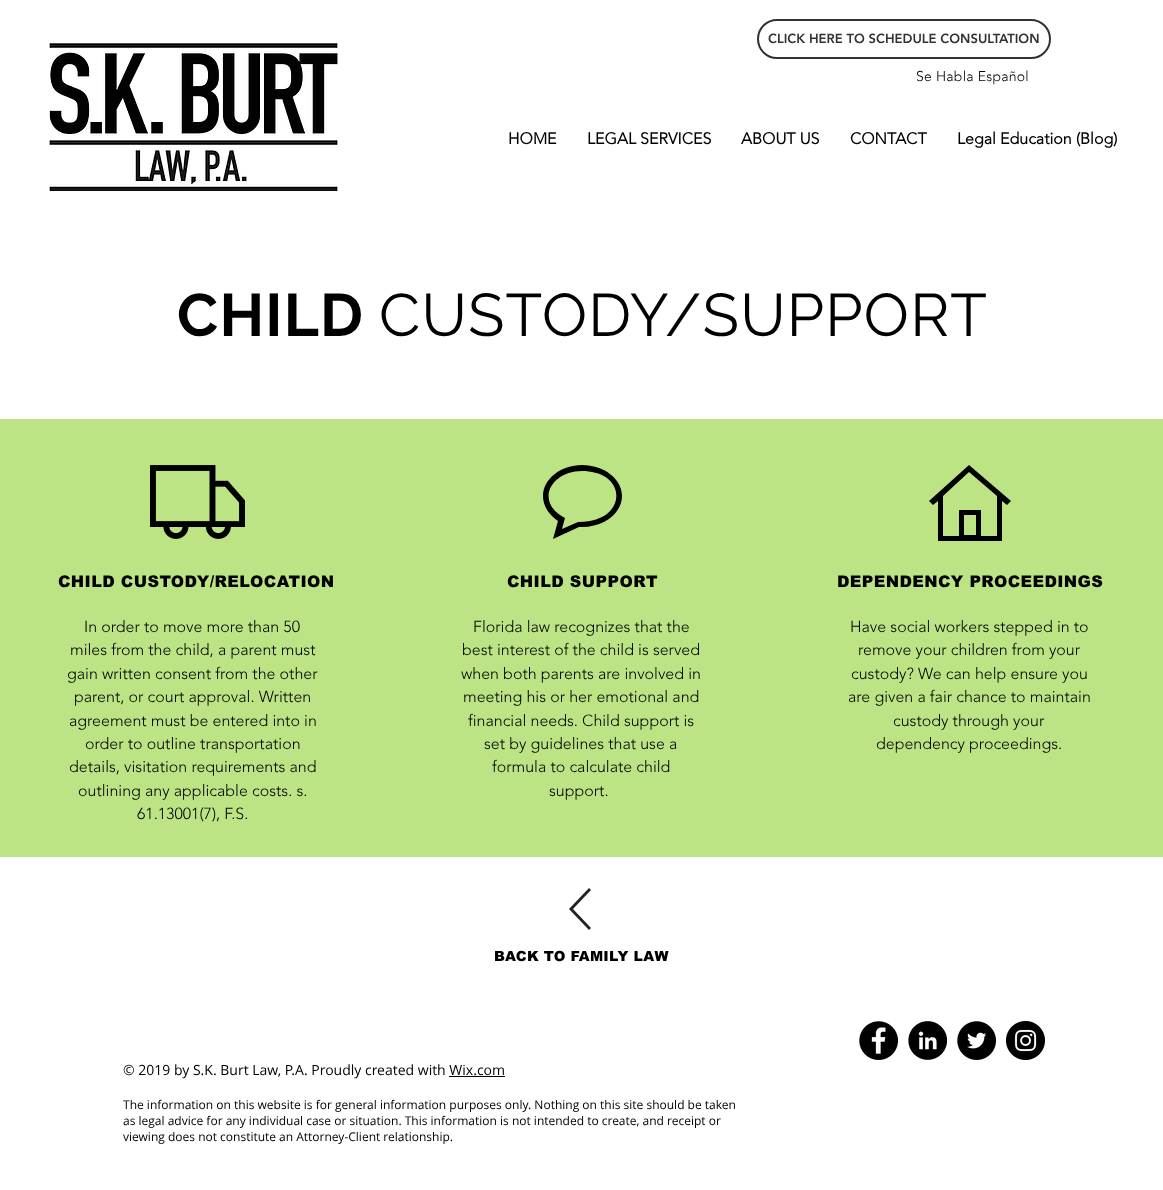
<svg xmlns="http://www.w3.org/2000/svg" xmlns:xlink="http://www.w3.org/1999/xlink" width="1163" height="1190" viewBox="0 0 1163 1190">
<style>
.cls-1{font:900 13px 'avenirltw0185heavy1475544';fill:#323232}
.cls-2{font:300 14px 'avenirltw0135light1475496';letter-spacing:0.25px;fill:#000000}
.cls-3{font:bold 16px 'avenirltw0135light1475496';fill:#000000}
.cls-4{font:bold 60px Raleway;letter-spacing:1.25px;fill:#000000}
.cls-5{font:60px Raleway;letter-spacing:1.25px;fill:#000000}
.cls-6{font:900 16px arial;letter-spacing:0.4px;fill:#000000}
.cls-7{font:300 16px 'avenirltw0135light1475496';fill:#000000}
.cls-8{font:900 14px arial;letter-spacing:0.25px;fill:#000000}
.cls-9{font:14px Open Sans;fill:#000000}
.cls-10{font:12px Open Sans;fill:#000000}
</style>
<rect width="100%" height="100%" fill="#ffffff"/>
<rect fill="none" stroke="#323232" stroke-width="2" x="758" y="20" width="292" height="38" rx="19"/>
<image xlink:href="image0.png" x="49" y="41" width="289" height="150"/>
<rect fill="#bce485" x="0" y="419" width="1163" height="438"/>
<image xlink:href="image1.png" x="150" y="465" width="95" height="74"/>
<path fill="#000000" d="M553 539L558 521C549 515 543 506 543 496C543 479 561 465 582 465C604 465 622 479 622 496C622 513 604 527 582 527H579ZM582 471C551 471 534 502 565 518L562 529L578 522C586 522 594 521 602 517C618 509 622 490 607 478C600 473 591 471 582 471Z"/>
<path fill="#000000" d="M1011 501L969 465L929 501L933 505L938 501V541H1002V501L1007 505ZM964 535V515H976V535ZM997 536H981V510H959V536H943V496L969 472L997 496Z"/>
<path fill="#242323" d="M589 930L591 928L573 909L591 890L589 888L569 909Z"/>
<image xlink:href="image2.png" x="859" y="1021" width="39" height="39"/>
<image xlink:href="image3.png" x="908" y="1021" width="39" height="39"/>
<image xlink:href="image4.png" x="957" y="1021" width="39" height="39"/>
<image xlink:href="image5.png" x="1006" y="1021" width="39" height="39"/>
<rect fill="#000000" x="449" y="1076" width="56" height="1"/>
<text class="cls-1" x="768" y="43">CLICK HERE TO SCHEDULE CONSULTATION</text>
<text class="cls-2" x="916" y="81">Se Habla Español</text>
<text class="cls-3" x="508" y="144">HOME</text>
<text class="cls-3" x="587" y="144">LEGAL SERVICES</text>
<text class="cls-3" x="741" y="144">ABOUT US</text>
<text class="cls-3" x="850" y="144">CONTACT</text>
<text class="cls-3" x="957" y="144">Legal Education (Blog)</text>
<text class="cls-4" x="177" y="336">CHILD</text>
<text class="cls-5" x="379" y="336">CUSTODY/SUPPORT</text>
<text class="cls-6" x="58" y="587">CHILD CUSTODY/RELOCATION</text>
<text class="cls-7" x="84" y="632">In order to move more than 50</text>
<text class="cls-7" x="70" y="655">miles from the child, a parent must</text>
<text class="cls-7" x="67" y="679">gain written consent from the other</text>
<text class="cls-7" x="74" y="702">parent, or court approval. Written</text>
<text class="cls-7" x="69" y="726">agreement must be entered into in</text>
<text class="cls-7" x="85" y="749">order to outline transportation</text>
<text class="cls-7" x="69" y="772">details, visitation requirements and</text>
<text class="cls-7" x="78" y="796">outlining any applicable costs. s.</text>
<text class="cls-7" x="137" y="819">61.13001(7), F.S.</text>
<text class="cls-6" x="507" y="587">CHILD SUPPORT</text>
<text class="cls-7" x="473" y="632">Florida law recognizes that the</text>
<text class="cls-7" x="462" y="655">best interest of the child is served</text>
<text class="cls-7" x="461" y="679">when both parents are involved in</text>
<text class="cls-7" x="463" y="702">meeting his or her emotional and</text>
<text class="cls-7" x="468" y="726">financial needs. Child support is</text>
<text class="cls-7" x="484" y="749">set by guidelines that use a</text>
<text class="cls-7" x="492" y="772">formula to calculate child</text>
<text class="cls-7" x="549" y="796">support.</text>
<text class="cls-6" x="837" y="587">DEPENDENCY PROCEEDINGS</text>
<text class="cls-7" x="850" y="632">Have social workers stepped in to</text>
<text class="cls-7" x="858" y="655">remove your children from your</text>
<text class="cls-7" x="851" y="679">custody? We can help ensure you</text>
<text class="cls-7" x="848" y="702">are given a fair chance to maintain</text>
<text class="cls-7" x="893" y="726">custody through your</text>
<text class="cls-7" x="876" y="749">dependency proceedings.</text>
<text class="cls-8" x="494" y="961">BACK TO FAMILY LAW</text>
<text class="cls-9" x="123" y="1075">© 2019 by S.K. Burt Law, P.A. Proudly created with Wix.com</text>
<text class="cls-10"><tspan x="123" y="1109">The information on this website is for general information purposes only. Nothing on this site should be taken</tspan><tspan x="123" y="1125">as legal advice for any individual case or situation. This information is not intended to create, and receipt or</tspan><tspan x="123" y="1141">viewing does not constitute an Attorney-Client relationship.</tspan></text>
</svg>
